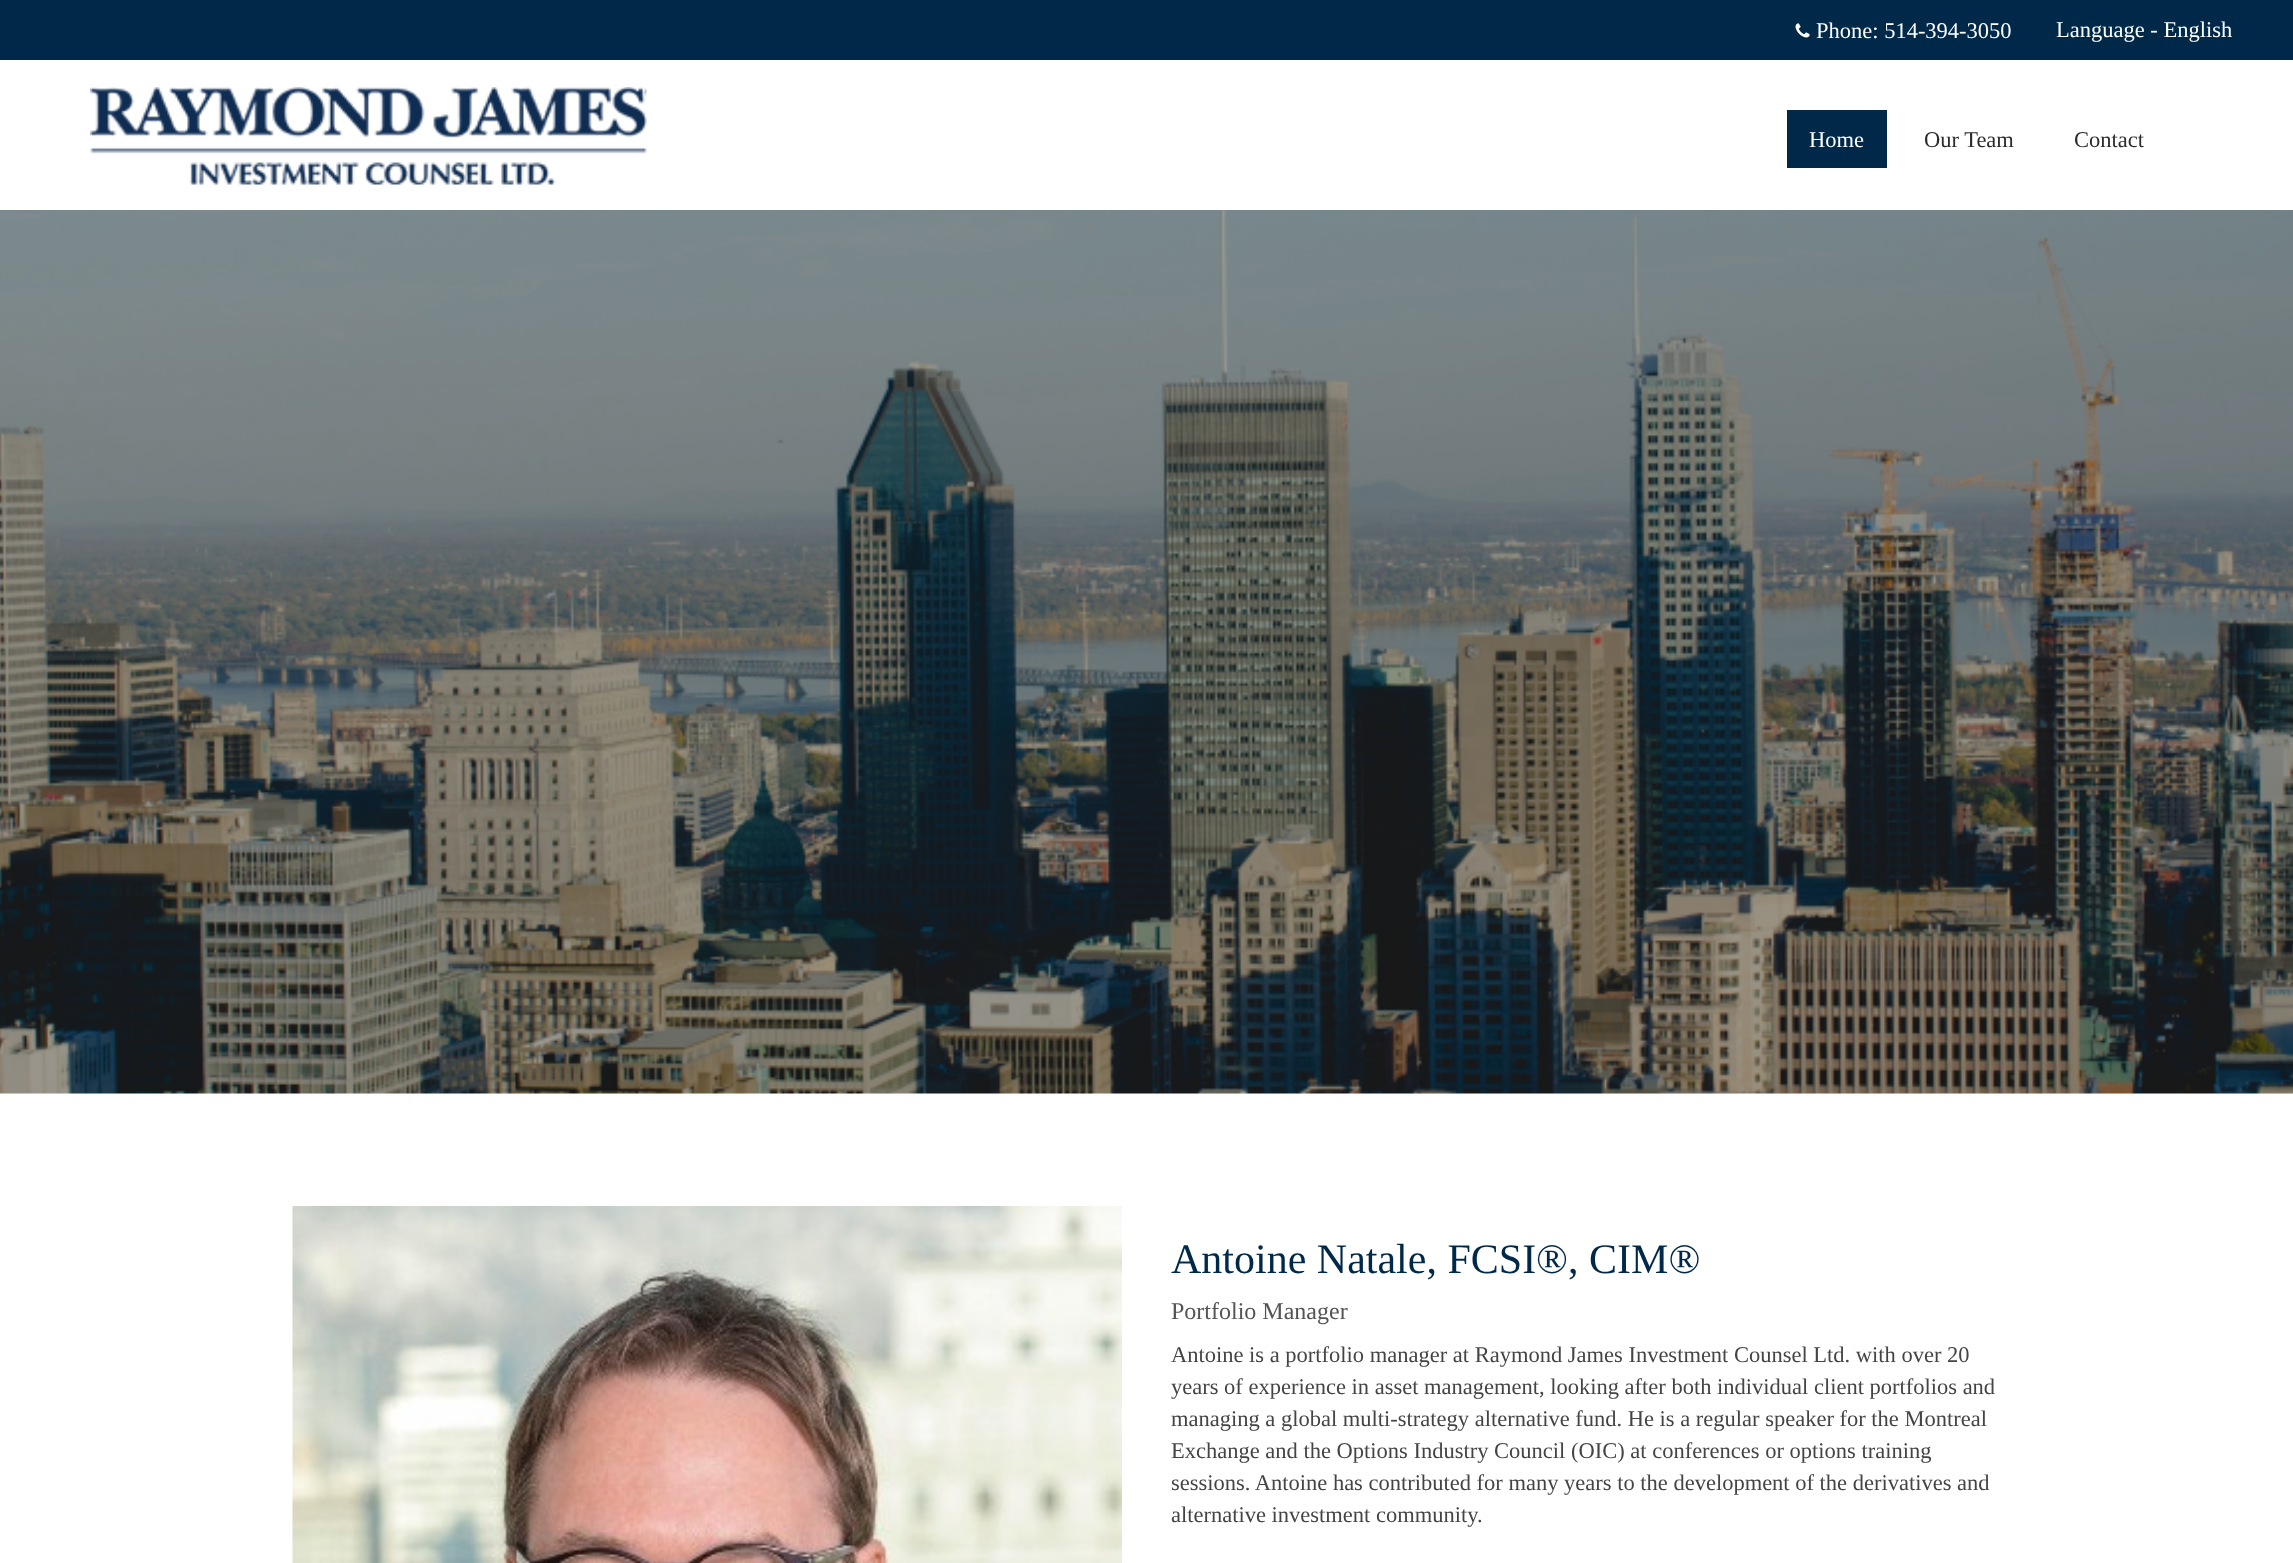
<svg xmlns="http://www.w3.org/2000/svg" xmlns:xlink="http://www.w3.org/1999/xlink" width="2293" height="1563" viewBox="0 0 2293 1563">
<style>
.cls-1{font:22.5px Liberation Serif;fill:#ffffff}
.cls-2{font:22.5px Liberation Serif;fill:#2b2b2b}
.cls-3{font:42px Liberation Serif;fill:#002949}
.cls-4{font:24px Liberation Serif;fill:#545454}
.cls-5{font:22.5px Liberation Serif;fill:#444444}
</style>
<rect width="100%" height="100%" fill="#ffffff"/>
<rect fill="#002949" x="0" y="0" width="2293" height="60"/>
<image xlink:href="image0.png" x="1795" y="23" width="15" height="15"/>
<image xlink:href="image1.png" x="90" y="87" width="557" height="98"/>
<rect fill="#002949" x="1787" y="110" width="100" height="58"/>
<image xlink:href="image2.png" x="0" y="210" width="2293" height="884"/>
<image xlink:href="image3.png" x="292" y="1206" width="830" height="357"/>
<text class="cls-1" x="1816" y="38">Phone: 514-394-3050</text>
<text class="cls-1" x="2056" y="37">Language - English</text>
<text class="cls-1" x="1809" y="147">Home</text>
<text class="cls-2" x="1924" y="147">Our Team</text>
<text class="cls-2" x="2074" y="147">Contact</text>
<text class="cls-3" x="1171" y="1273">Antoine Natale, FCSI®, CIM®</text>
<text class="cls-4" x="1171" y="1319">Portfolio Manager</text>
<text class="cls-5"><tspan x="1171" y="1362">Antoine is a portfolio manager at Raymond James Investment Counsel Ltd. with over 20</tspan><tspan x="1171" y="1394">years of experience in asset management, looking after both individual client portfolios and</tspan><tspan x="1171" y="1426">managing a global multi-strategy alternative fund. He is a regular speaker for the Montreal</tspan><tspan x="1171" y="1458">Exchange and the Options Industry Council (OIC) at conferences or options training</tspan><tspan x="1171" y="1490">sessions. Antoine has contributed for many years to the development of the derivatives and</tspan><tspan x="1171" y="1522">alternative investment community.</tspan></text>
</svg>
